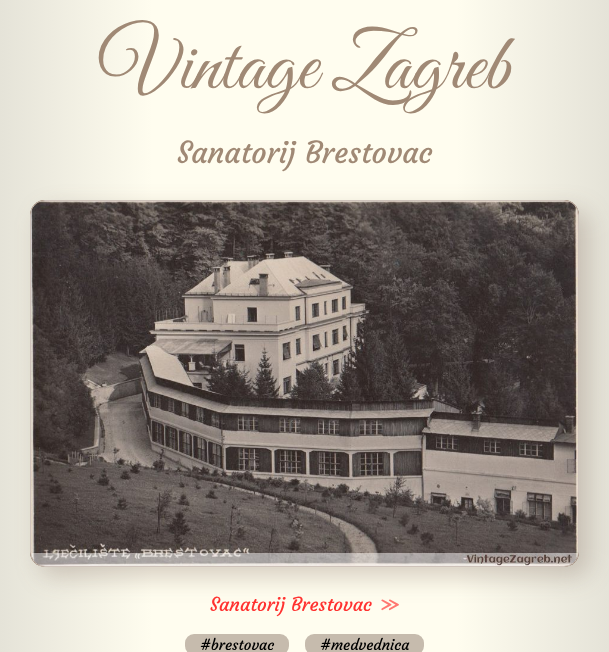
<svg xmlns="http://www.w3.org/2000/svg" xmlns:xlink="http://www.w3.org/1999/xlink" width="609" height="652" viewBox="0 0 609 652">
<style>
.cls-1{font:80px Great Vibes;fill:#a08975}
.cls-2{font:30px Courgette;fill:#a08975}
.cls-3{font:19px Courgette;fill:#ff3230}
.cls-4{font:bold 19px Courgette;letter-spacing:-4px;fill:#ff7770}
.cls-5{font:15px Courgette;fill:#000000}
</style>
<defs>
<linearGradient id="g1" gradientUnits="userSpaceOnUse" x1="0" y1="384" x2="609" y2="384"><stop offset="0" stop-color="#e5e3d8"/><stop offset="0.25" stop-color="#fffdef"/><stop offset="0.75" stop-color="#fffdef"/><stop offset="1" stop-color="#e5e3d8"/></linearGradient>
</defs>
<rect width="100%" height="100%" fill="#ffffff"/>
<rect fill="url(#g1)" x="0" y="0" width="609" height="652"/>
<rect fill="#5c4033" fill-opacity="0.25" filter="blur(12.5px)" x="40" y="210" width="549" height="367" rx="15"/>
<rect fill="#6f4e37" x="30" y="200" width="549" height="367" rx="15"/>
<rect fill="none" stroke="#ffffff" stroke-opacity="0.66" x="30.5" y="200.5" width="548" height="366" rx="14.5"/>
<image xlink:href="image0.png" x="31" y="201" width="547" height="365"/>
<rect fill="#c6bbad" x="185" y="634" width="104" height="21" rx="9"/>
<rect fill="#c6bbad" x="305" y="634" width="119" height="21" rx="9"/>
<text class="cls-1" x="99" y="88">Vintage Zagreb</text>
<text class="cls-2" x="177" y="163">Sanatorij Brestovac</text>
<text class="cls-3" x="210" y="611">Sanatorij Brestovac</text>
<text class="cls-4" x="380" y="611">&gt;&gt;</text>
<text class="cls-5" x="200" y="650">#brestovac</text>
<text class="cls-5" x="320" y="650">#medvednica</text>
</svg>
